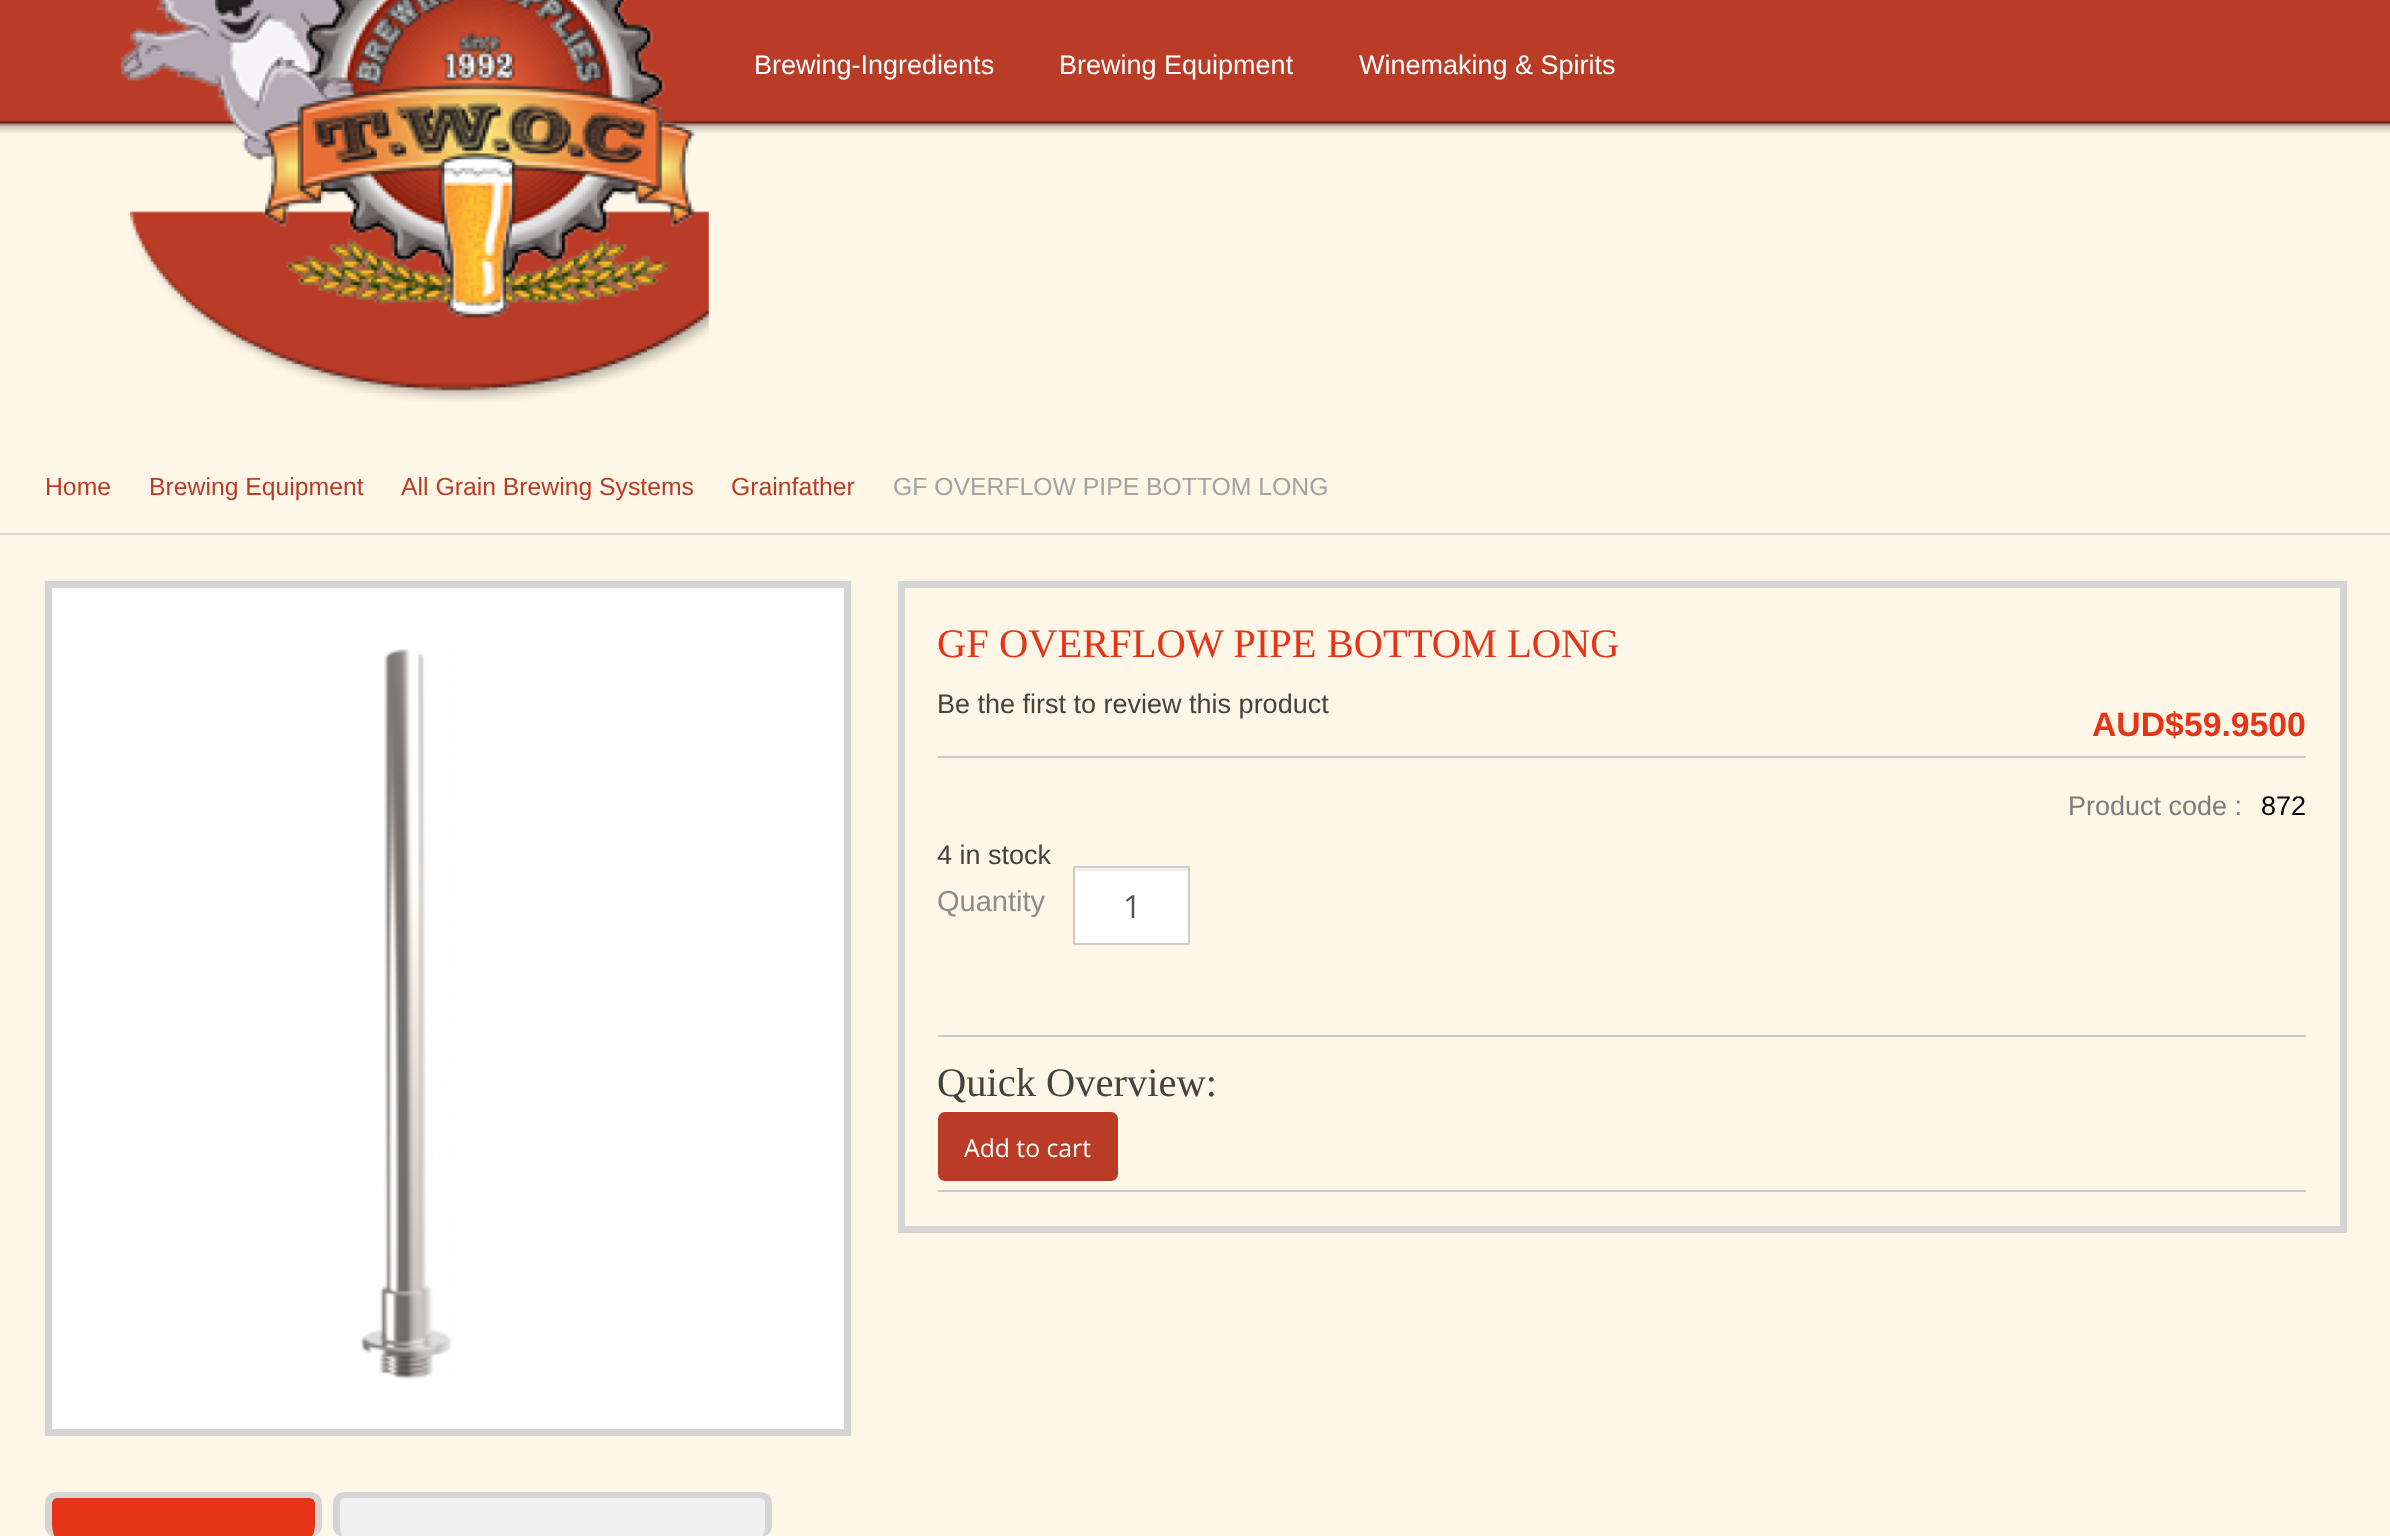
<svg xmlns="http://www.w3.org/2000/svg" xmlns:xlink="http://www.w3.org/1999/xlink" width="2390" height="1536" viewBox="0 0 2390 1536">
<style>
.cls-1{font:27px Liberation Sans;fill:#ffffff}
.cls-2{font:24.75px Liberation Sans;fill:#ba3b26}
.cls-3{font:24.75px Liberation Sans;fill:#a3a3a3}
.cls-4{font:40.5px Liberation Serif;fill:#e63417}
.cls-5{font:27px Liberation Sans;fill:#444340}
.cls-6{font:bold 33.75px Liberation Sans;fill:#e63417}
.cls-7{font:27px Liberation Sans;fill:#7d7d7d}
.cls-8{font:27px Liberation Sans;fill:#000000}
.cls-9{font:29px Liberation Sans;fill:#8c8c8c}
.cls-10{font:32px Open Sans;fill:#555555}
.cls-11{font:24.75px Open Sans;fill:#ffffff}
.cls-12{font:40.5px Liberation Serif;fill:#444340}
</style>
<rect width="100%" height="100%" fill="#fef6e6"/>
<image xlink:href="image0.png" x="0" y="0" width="2390" height="134"/>
<image xlink:href="image1.png" x="120" y="0" width="589" height="402"/>
<rect fill="#d5d5d5" x="0" y="533" width="2390" height="2"/>
<rect fill="#ffffff" stroke="#d5d5d5" stroke-width="7" x="48.5" y="584.5" width="799" height="848"/>
<image xlink:href="image2.png" x="360" y="648" width="93" height="732"/>
<rect fill="none" stroke="#d5d5d5" stroke-width="7" x="901.5" y="584.5" width="1442" height="645"/>
<rect fill="#cccccc" x="938" y="756" width="1368" height="2"/>
<rect fill="#ffffff" x="1076" y="871" width="112" height="72"/>
<rect fill="#ececec" x="1076" y="869" width="112" height="2"/>
<rect fill="none" stroke="#cccccc" stroke-width="2" x="1074" y="867" width="115" height="77" rx="1"/>
<rect fill="#ba3b26" x="938" y="1112" width="180" height="69" rx="7"/>
<rect fill="#cccccc" x="938" y="1035" width="1368" height="2"/>
<rect fill="#cccccc" x="938" y="1190" width="1368" height="2"/>
<path fill="#e63417" d="M56 1498H310C313 1498 315 1501 315 1503V1526C315 1532 313 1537 310 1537H56C54 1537 52 1532 52 1526V1503C52 1501 54 1498 56 1498Z"/>
<path fill="#d5d5d5" fill-rule="evenodd" d="M56 1492H310C317 1492 322 1497 322 1503V1526C322 1532 317 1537 310 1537H56C50 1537 45 1532 45 1526V1503C45 1497 50 1492 56 1492ZM56 1498H310C313 1498 315 1501 315 1503V1526C315 1532 313 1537 310 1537H56C54 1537 52 1532 52 1526V1503C52 1501 54 1498 56 1498Z"/>
<path fill="#f0f0f0" d="M344 1498H760C763 1498 765 1501 765 1503V1526C765 1532 763 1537 760 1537H344C342 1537 340 1532 340 1526V1503C340 1501 342 1498 344 1498Z"/>
<path fill="#d5d5d5" fill-rule="evenodd" d="M344 1492H760C767 1492 772 1497 772 1503V1526C772 1532 767 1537 760 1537H344C338 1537 333 1532 333 1526V1503C333 1497 338 1492 344 1492ZM344 1498H760C763 1498 765 1501 765 1503V1526C765 1532 763 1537 760 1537H344C342 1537 340 1532 340 1526V1503C340 1501 342 1498 344 1498Z"/>
<text class="cls-1" x="754" y="74">Brewing-Ingredients</text>
<text class="cls-1" x="1059" y="74">Brewing Equipment</text>
<text class="cls-1" x="1359" y="74">Winemaking &amp; Spirits</text>
<text class="cls-2" x="45" y="495">Home</text>
<text class="cls-2" x="149" y="495">Brewing Equipment</text>
<text class="cls-2" x="401" y="495">All Grain Brewing Systems</text>
<text class="cls-2" x="731" y="495">Grainfather</text>
<text class="cls-3" x="893" y="495">GF OVERFLOW PIPE BOTTOM LONG</text>
<text class="cls-4" x="937" y="657">GF OVERFLOW PIPE BOTTOM LONG</text>
<text class="cls-5" x="937" y="713">Be the first to review this product</text>
<text class="cls-6" x="2092" y="736">AUD$59.9500</text>
<text class="cls-7" x="2068" y="815">Product code :</text>
<text class="cls-8" x="2261" y="815">872</text>
<text class="cls-5" x="937" y="864">4 in stock</text>
<text class="cls-9" x="937" y="911">Quantity</text>
<text class="cls-10" x="1123" y="918">1</text>
<text class="cls-11" x="964" y="1157">Add to cart</text>
<text class="cls-12" x="937" y="1096">Quick Overview:</text>
</svg>
